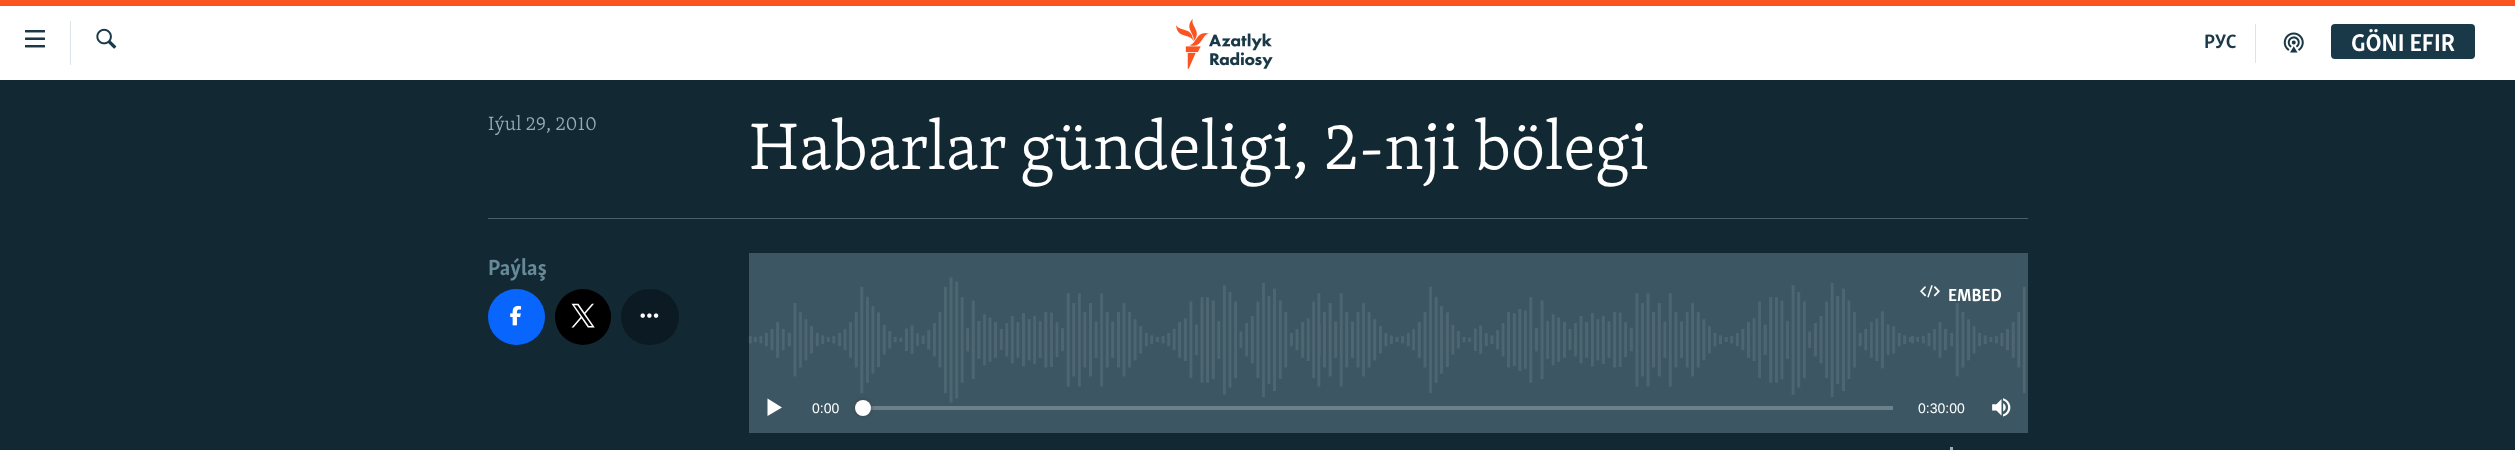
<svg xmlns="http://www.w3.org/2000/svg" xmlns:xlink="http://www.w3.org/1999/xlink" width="2515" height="450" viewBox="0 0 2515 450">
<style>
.cls-1{font:bold 20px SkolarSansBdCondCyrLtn;fill:#1a3948}
.cls-2{font:bold 25px SkolarSansBdCondCyrLtn;fill:#ffffff}
.cls-3{font:300 19.75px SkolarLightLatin;fill:#95adb9}
.cls-4{font:300 67.5px SkolarLightLatin;fill:#ffffff}
.cls-5{font:bold 22.5px SkolarSansBdCondCyrLtn;fill:#678a9b}
.cls-6{font:bold 18px SkolarSansBdCondCyrLtn;fill:#ffffff}
.cls-7{font:14px Liberation Sans;fill:#ffffff}
</style>
<rect width="100%" height="100%" fill="#ffffff"/>
<rect fill="#fa5420" x="0" y="0" width="2515" height="6"/>
<image xlink:href="image0.png" x="25" y="30" width="20" height="18"/>
<rect fill="#dce4e8" x="70" y="21" width="1" height="44"/>
<image xlink:href="image1.png" x="96" y="28" width="21" height="21"/>
<image xlink:href="image2.png" x="1176" y="19" width="97" height="50"/>
<rect fill="#dce4e8" x="2255" y="24" width="1" height="39"/>
<image xlink:href="image3.png" x="2283" y="32" width="21" height="21"/>
<rect fill="#1a3948" x="2331" y="24" width="144" height="35" rx="4"/>
<rect fill="#122832" x="0" y="80" width="2515" height="370"/>
<rect fill="#48616d" x="488" y="218" width="1540" height="1"/>
<rect fill="#0866ff" x="488" y="289" width="57" height="56" rx="28"/>
<image xlink:href="image4.png" x="510" y="305" width="12" height="21"/>
<circle fill="#000000" cx="583" cy="317" r="28"/>
<image xlink:href="image5.png" x="571" y="303" width="24" height="25"/>
<rect fill="#0c1b23" x="621" y="289" width="58" height="56" rx="28"/>
<image xlink:href="image6.png" x="640" y="313" width="19" height="5"/>
<rect fill="#3c5763" x="749" y="253" width="1279" height="180"/>
<image xlink:href="image7.png" x="748" y="277" width="1278" height="126"/>
<image xlink:href="image8.png" x="1920" y="285" width="20" height="13"/>
<path fill="#ffffff" d="M767.5 416L782 407.5L767.5 398.5Z"/>
<rect fill="#6d818a" x="863" y="406" width="1030" height="4"/>
<rect fill="#414144" filter="blur(2px)" x="855" y="400" width="16" height="16" rx="8"/>
<circle fill="#ffffff" cx="863" cy="408" r="8"/>
<image xlink:href="image9.png" x="1992" y="398" width="19" height="19"/>
<rect fill="#95adb9" x="1950" y="447" width="3" height="3"/>
<text class="cls-1" x="2204" y="48">РУС</text>
<text class="cls-2" x="2351" y="51">GÖNI EFIR</text>
<text class="cls-3" x="488" y="130">Iýul 29, 2010</text>
<text class="cls-4" x="749" y="169">Habarlar gündeligi, 2-nji bölegi</text>
<text class="cls-5" x="488" y="275">Paýlaş</text>
<text class="cls-6" x="1948" y="301">EMBED</text>
<text class="cls-7" x="812" y="413">0:00</text>
<text class="cls-7" x="1918" y="413">0:30:00</text>
</svg>
